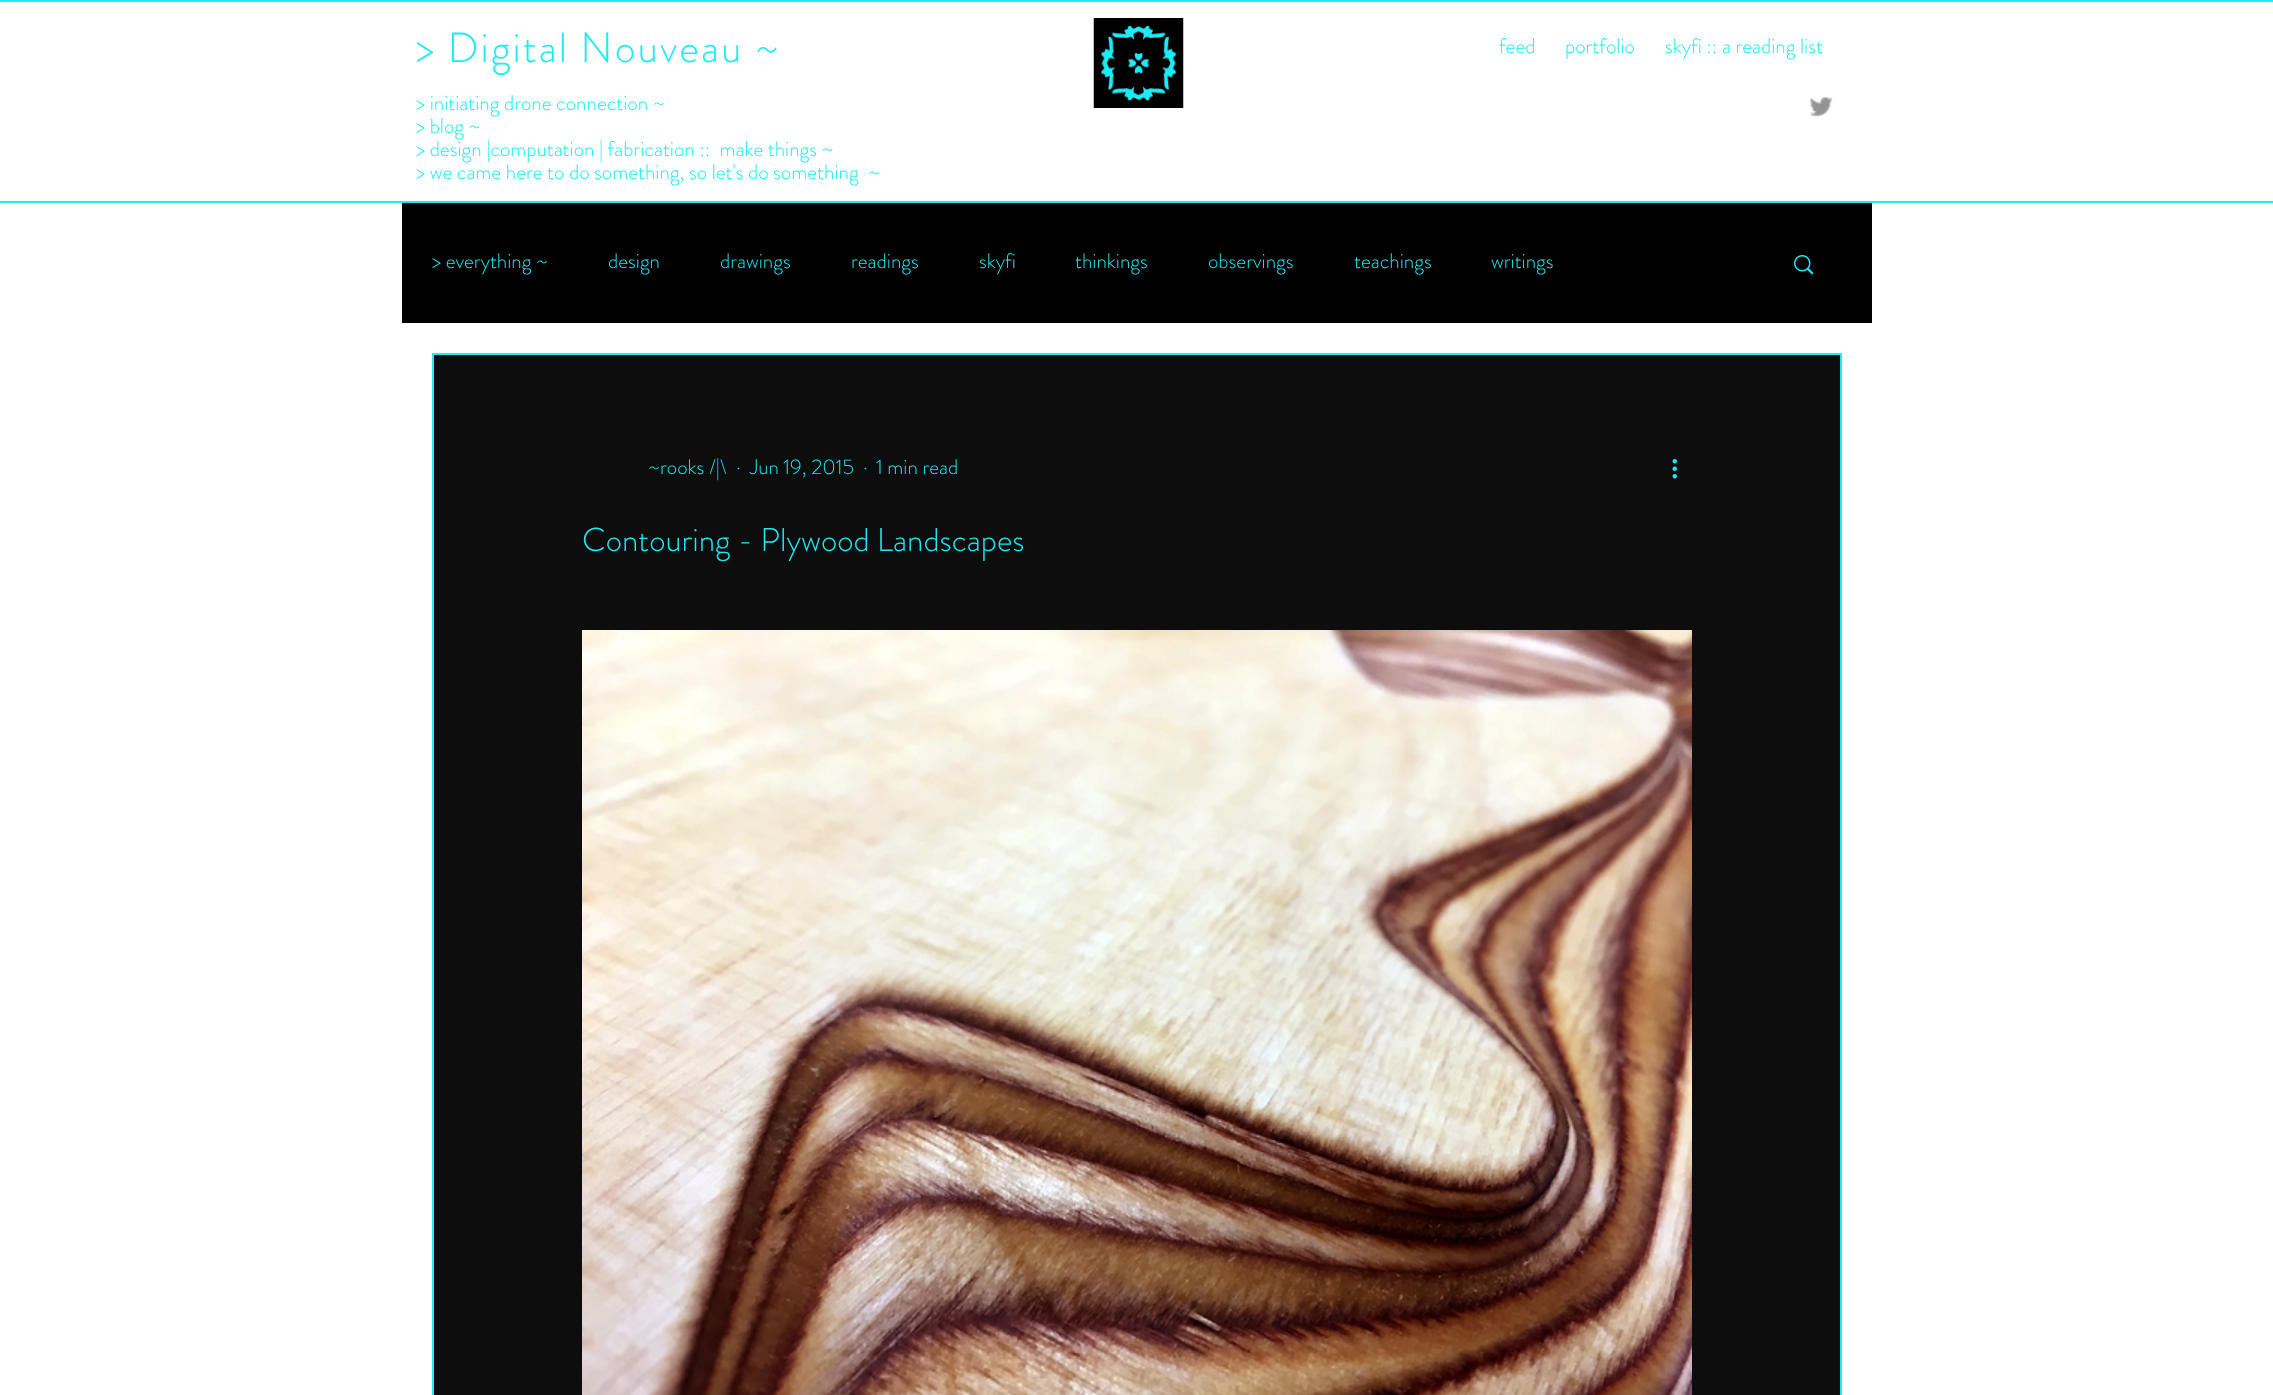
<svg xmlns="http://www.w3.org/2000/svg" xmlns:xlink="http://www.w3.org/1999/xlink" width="2273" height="1395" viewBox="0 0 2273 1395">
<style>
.cls-1{font:300 42px 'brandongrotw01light';letter-spacing:2.1px;fill:#1cebf4}
.cls-2{font:300 21px 'brandongrotw01light';fill:#1cebf4}
.cls-3{font:300 33px 'brandongrotw01light';fill:#1cebf4}
</style>
<rect width="100%" height="100%" fill="#ffffff"/>
<rect fill="#1cebf4" x="0" y="0" width="2273" height="2"/>
<rect fill="#1cebf4" x="0" y="201" width="2273" height="2"/>
<image xlink:href="image0.png" x="1093" y="18" width="91" height="90"/>
<image xlink:href="image1.png" x="1809" y="96" width="24" height="21"/>
<rect fill="#000000" x="402" y="203" width="1470" height="120"/>
<image xlink:href="image2.png" x="1794" y="255" width="20" height="20"/>
<rect fill="#0d0d0d" stroke="#1cebf4" stroke-width="2" x="433" y="354" width="1408" height="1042"/>
<image xlink:href="image3.png" x="1672" y="459" width="5" height="20"/>
<image xlink:href="image4.png" x="582" y="630" width="1110" height="765"/>
<text class="cls-1" x="416" y="62">&gt; Digital Nouveau ~</text>
<text class="cls-2" xml:space="preserve"><tspan x="416" y="110">&gt; initiating drone connection ~</tspan><tspan x="416" y="133">&gt; blog ~</tspan><tspan x="416" y="156">&gt; design |computation | fabrication ::  make things ~</tspan><tspan x="416" y="179">&gt; we came here to do something, so let's do something  ~</tspan></text>
<text class="cls-2" x="1499" y="53">feed</text>
<text class="cls-2" x="1565" y="53">portfolio</text>
<text class="cls-2" x="1665" y="53">skyfi :: a reading list</text>
<text class="cls-2" x="432" y="268">&gt; everything ~</text>
<text class="cls-2" x="608" y="268">design</text>
<text class="cls-2" x="720" y="268">drawings</text>
<text class="cls-2" x="851" y="268">readings</text>
<text class="cls-2" x="979" y="268">skyfi</text>
<text class="cls-2" x="1075" y="268">thinkings</text>
<text class="cls-2" x="1208" y="268">observings</text>
<text class="cls-2" x="1354" y="268">teachings</text>
<text class="cls-2" x="1491" y="268">writings</text>
<text class="cls-2" x="648" y="474">~rooks /|\</text>
<text class="cls-2" x="736" y="474">·</text>
<text class="cls-2" x="750" y="474">Jun 19, 2015</text>
<text class="cls-2" x="863" y="474">·</text>
<text class="cls-2" x="876" y="474">1 min read</text>
<text class="cls-3" x="582" y="551">Contouring - Plywood Landscapes</text>
</svg>
